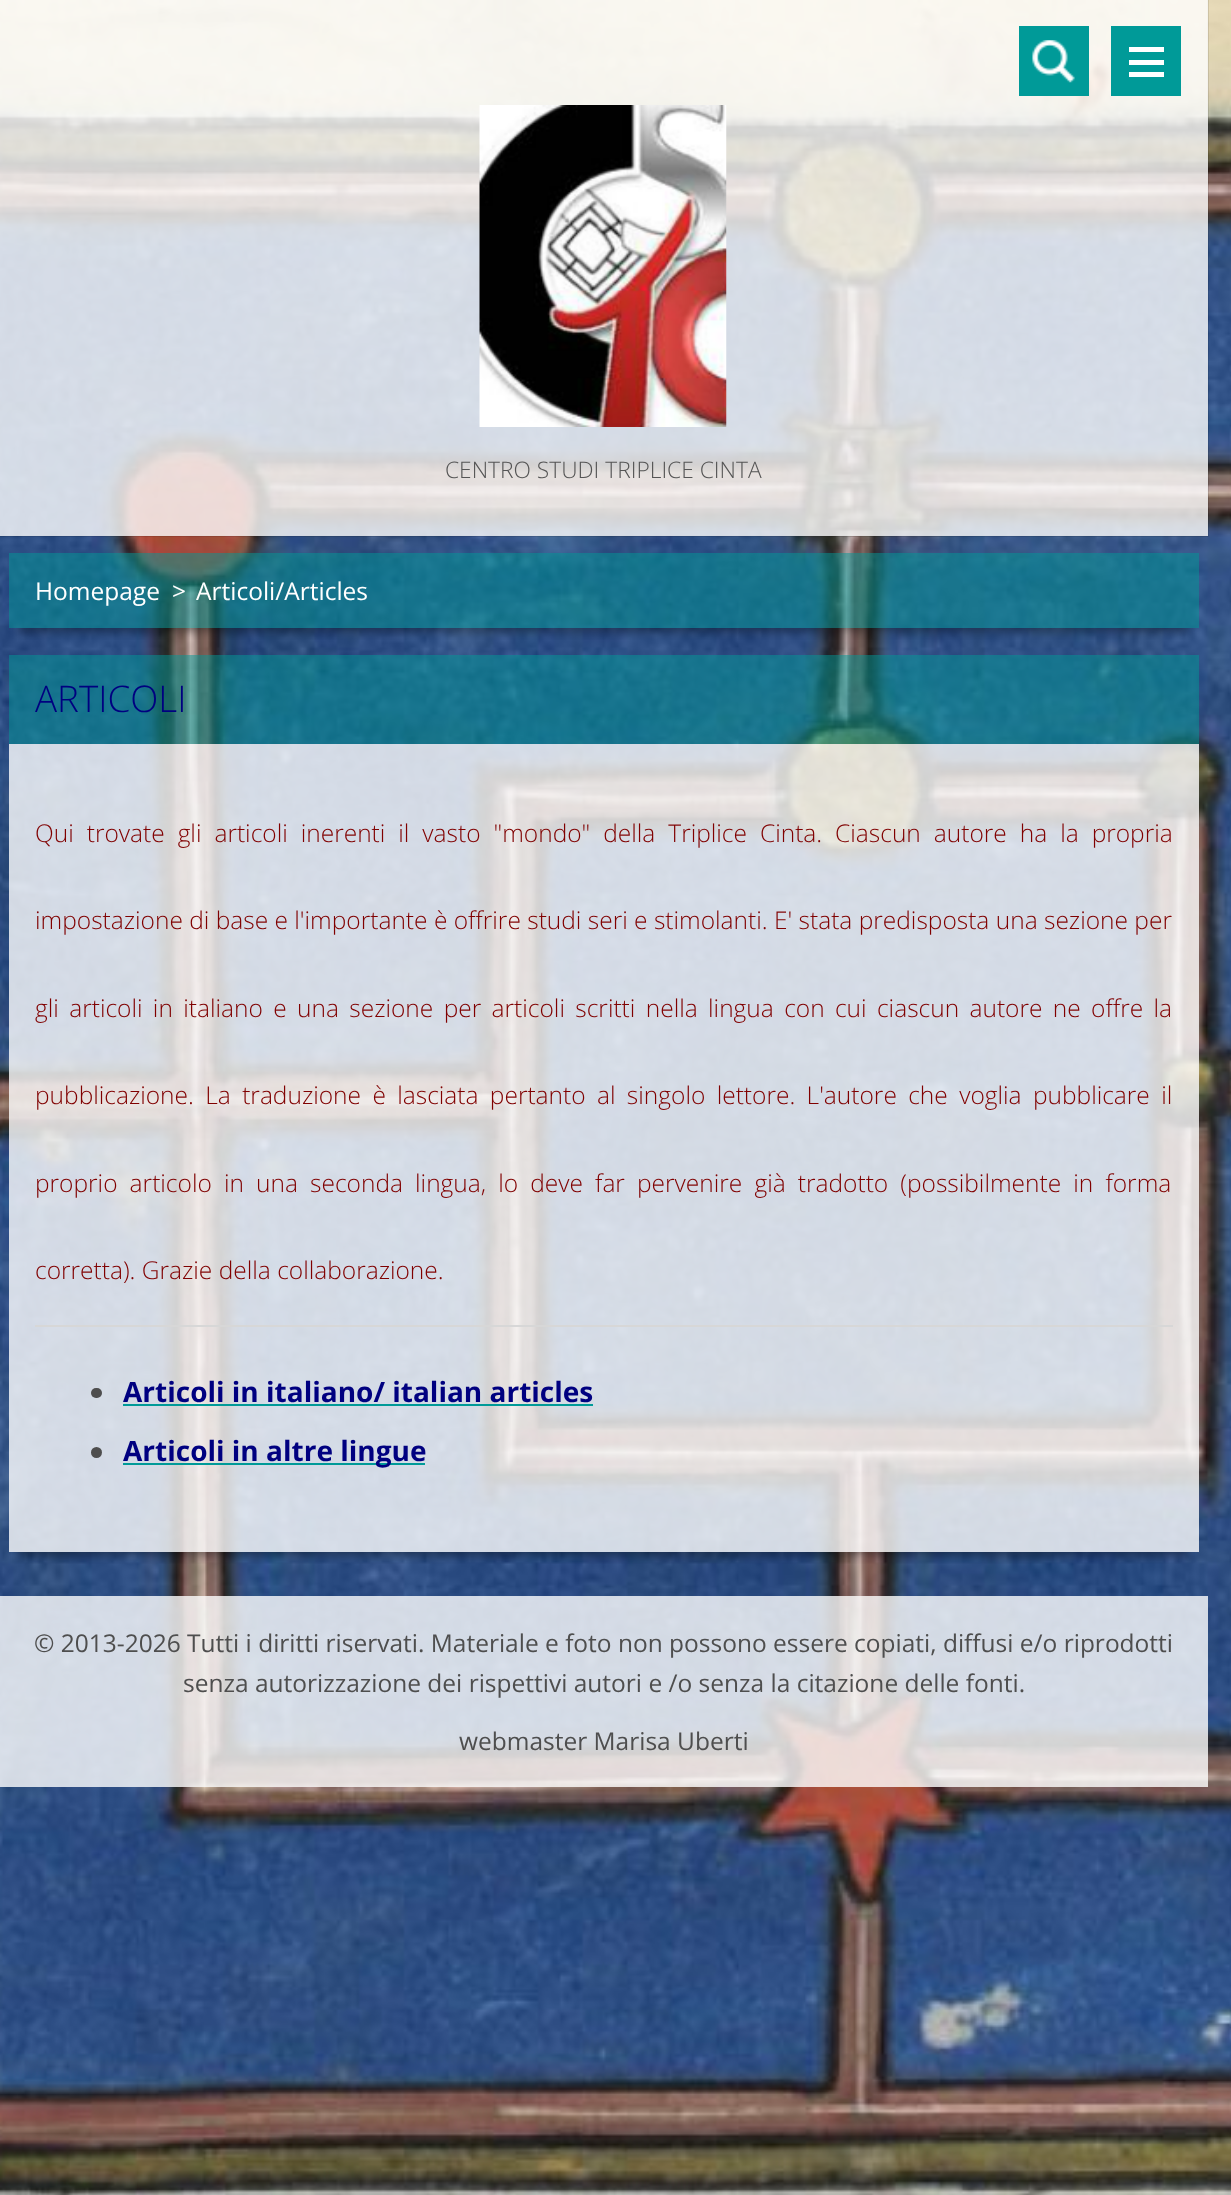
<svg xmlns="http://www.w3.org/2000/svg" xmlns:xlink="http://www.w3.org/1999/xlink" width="1231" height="2195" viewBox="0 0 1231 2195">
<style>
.cls-1{font:300 22.75px Open Sans;fill:#555555}
.cls-2{font:24.5px Open Sans;fill:#ffffff}
.cls-3{font:300 36.75px Open Sans;fill:#000080}
.cls-4{font:300 24.5px Open Sans;fill:#800000}
.cls-5{font:bold 28px Open Sans;fill:#000080}
.cls-6{font:24.5px Open Sans;fill:#4e4e4e}
</style>
<defs>
<clipPath id="clip1"><rect x="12" y="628" width="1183" height="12"/></clipPath>
<clipPath id="clip2"><rect x="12" y="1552" width="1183" height="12"/></clipPath>
</defs>
<rect width="100%" height="100%" fill="#ffffff"/>
<image xlink:href="image0.png" x="0" y="0" width="1231" height="2195"/>
<rect fill="none" stroke="#000000" stroke-opacity="0.1" stroke-width="2" x="-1" y="-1" width="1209" height="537"/>
<rect fill="#ffffff" fill-opacity="0.8" x="0" y="0" width="1208" height="448"/>
<image xlink:href="image1.png" x="479" y="105" width="248" height="322"/>
<rect fill="#009a98" x="1019" y="26" width="70" height="70"/>
<image xlink:href="image2.png" x="1032" y="40" width="43" height="43"/>
<rect fill="#009a98" x="1111" y="26" width="70" height="70"/>
<rect fill="#ffffff" x="1129" y="47" width="35" height="5"/>
<rect fill="#ffffff" x="1129" y="60" width="35" height="5"/>
<rect fill="#ffffff" x="1129" y="72" width="35" height="5"/>
<rect fill="#ffffff" fill-opacity="0.8" x="0" y="448" width="1208" height="88"/>
<g clip-path="url(#clip1)">
<rect fill="#000000" fill-opacity="0.35" filter="blur(5px)" x="19" y="578" width="1169" height="54"/>
</g>
<rect fill="#009a98" fill-opacity="0.5" x="9" y="553" width="1190" height="75"/>
<g clip-path="url(#clip2)">
<rect fill="#000000" fill-opacity="0.35" filter="blur(5px)" x="19" y="679" width="1169" height="877"/>
</g>
<rect fill="#009a98" fill-opacity="0.5" x="9" y="655" width="1190" height="89"/>
<rect fill="#ffffff" fill-opacity="0.8" x="9" y="744" width="1190" height="773"/>
<rect fill="#d7d7d7" x="35" y="1325" width="1138" height="2"/>
<rect fill="#4e4e4e" x="91" y="1388" width="11" height="10" rx="5"/>
<rect fill="#009a98" x="123" y="1404" width="470" height="2"/>
<circle fill="#4e4e4e" cx="96.5" cy="1452.5" r="5.5"/>
<rect fill="#009a98" x="123" y="1463" width="302" height="2"/>
<rect fill="#ffffff" fill-opacity="0.8" x="9" y="1517" width="1190" height="35"/>
<rect fill="#ffffff" fill-opacity="0.8" x="0" y="1596" width="1208" height="124"/>
<rect fill="#ffffff" fill-opacity="0.8" x="0" y="1720" width="1208" height="67"/>
<text class="cls-1" x="445" y="478">CENTRO STUDI TRIPLICE CINTA</text>
<text class="cls-2" x="35" y="600">Homepage</text>
<text class="cls-2" x="172" y="600">&gt;</text>
<text class="cls-2" x="196" y="600">Articoli/Articles</text>
<text class="cls-3" x="35" y="712">ARTICOLI</text>
<text class="cls-4" x="35" y="842" word-spacing="6.6">Qui trovate gli articoli inerenti il vasto "mondo" della Triplice Cinta. Ciascun autore ha la propria</text>
<text class="cls-4" x="35" y="929">impostazione di base e l'importante è offrire studi seri e stimolanti. E' stata predisposta una sezione per</text>
<text class="cls-4" x="35" y="1017" word-spacing="4">gli articoli in italiano e una sezione per articoli scritti nella lingua con cui ciascun autore ne offre la</text>
<text class="cls-4" x="35" y="1104" word-spacing="5">pubblicazione. La traduzione è lasciata pertanto al singolo lettore. L'autore che voglia pubblicare il</text>
<text class="cls-4" x="35" y="1192" word-spacing="5.75">proprio articolo in una seconda lingua, lo deve far pervenire già tradotto (possibilmente in forma</text>
<text class="cls-4" x="35" y="1279">corretta). Grazie della collaborazione.</text>
<text class="cls-5" x="123" y="1402">Articoli in italiano/ italian articles</text>
<text class="cls-5" x="123" y="1461">Articoli in altre lingue</text>
<text class="cls-6" x="34" y="1652">© 2013-2026 Tutti i diritti riservati. Materiale e foto non possono essere copiati, diffusi e/o riprodotti</text>
<text class="cls-6" x="183" y="1692">senza autorizzazione dei rispettivi autori e /o senza la citazione delle fonti.</text>
<text class="cls-6" x="459" y="1750">webmaster Marisa Uberti</text>
</svg>
